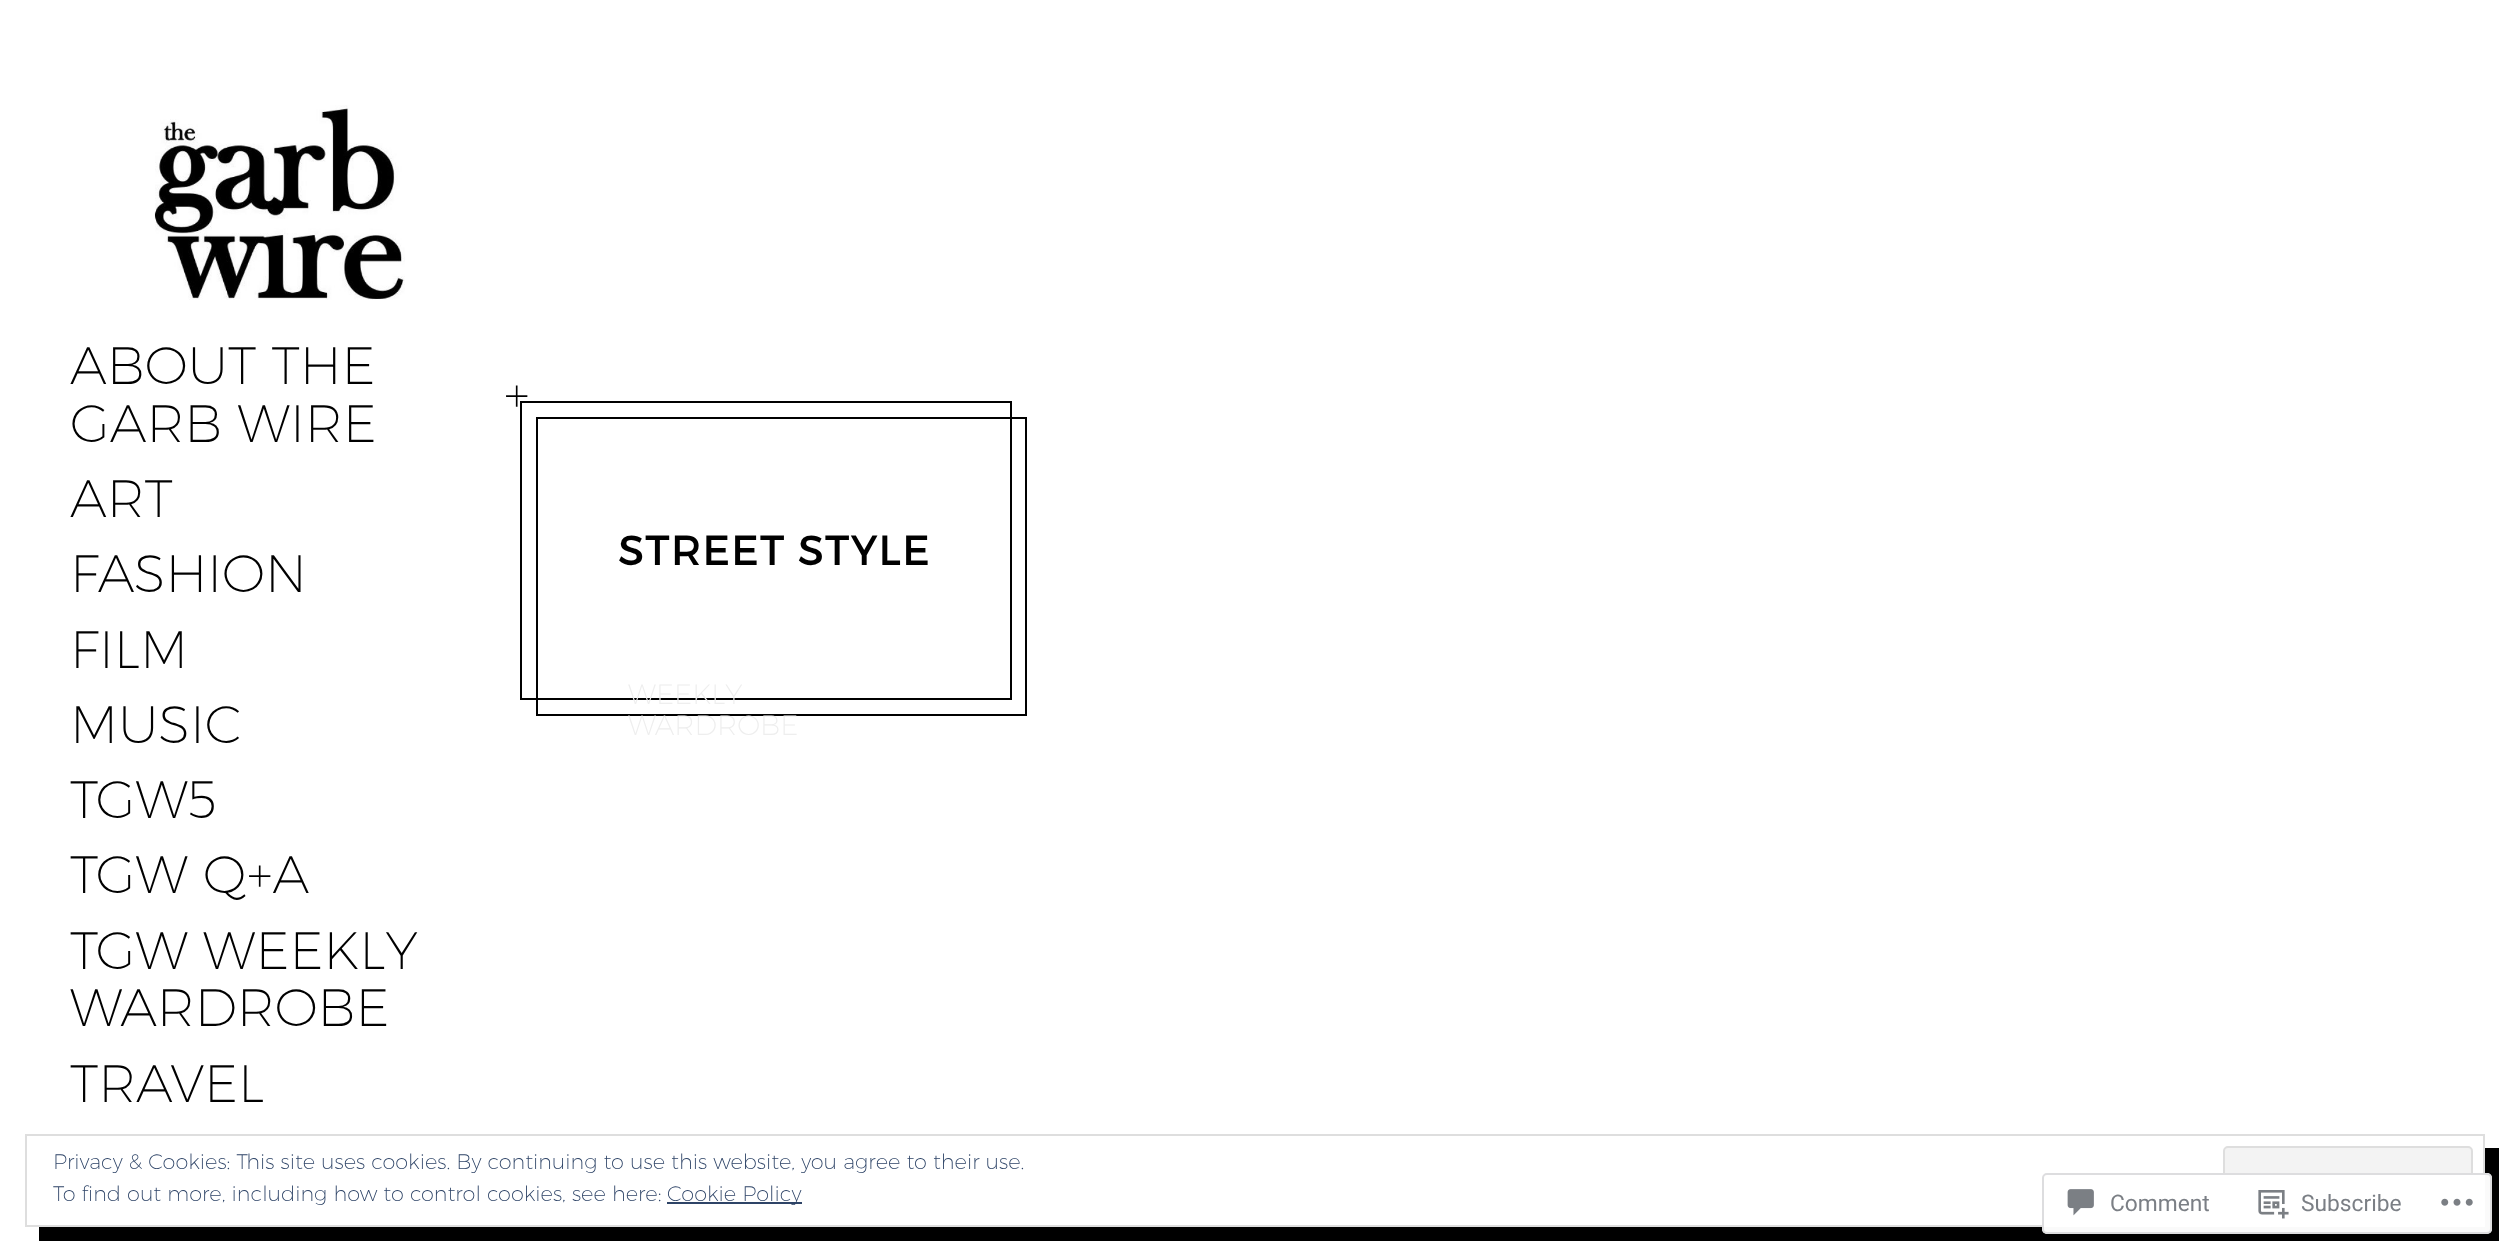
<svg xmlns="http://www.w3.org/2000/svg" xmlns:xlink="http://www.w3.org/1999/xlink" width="2508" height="1251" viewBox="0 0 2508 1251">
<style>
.cls-1{font:200 52.5px Montserrat;fill:#000000}
.cls-2{font:200 28px Montserrat;fill:#eeeeee}
.cls-3{font:42px Montserrat;letter-spacing:1.25px;fill:#000000}
.cls-4{font:200 21px Montserrat;fill:#2e4467}
.cls-5{font:22.75px Roboto;fill:#7b7f85}
</style>
<rect width="100%" height="100%" fill="#ffffff"/>
<image xlink:href="image0.png" x="154" y="105" width="251" height="195"/>
<rect fill="none" stroke="#000000" stroke-width="2" x="521" y="402" width="490" height="297"/>
<rect fill="none" stroke="#000000" stroke-width="2" x="537" y="418" width="489" height="297"/>
<rect fill="#000000" x="39" y="1148" width="2460" height="93"/>
<rect fill="#ffffff" x="39" y="1148" width="2444" height="77"/>
<rect fill="none" stroke="#dedede" stroke-width="2" x="26" y="1135" width="2458" height="91"/>
<rect fill="#f3f3f3" stroke="#dedede" stroke-width="2" x="2224" y="1147" width="248" height="67" rx="4"/>
<rect fill="#2e4467" x="667" y="1202" width="135" height="2"/>
<rect fill="#ffffff" fill-opacity="0.98" x="2042" y="1173" width="450" height="61" rx="5"/>
<rect fill="none" stroke="#dcdcde" stroke-opacity="0.98" stroke-width="2" x="2043" y="1174" width="448" height="59" rx="4"/>
<image xlink:href="image1.png" x="2067" y="1189" width="27" height="27"/>
<image xlink:href="image2.png" x="2258" y="1190" width="31" height="29"/>
<image xlink:href="image3.png" x="2441" y="1198" width="32" height="8"/>
<text class="cls-1"><tspan x="70" y="384">ABOUT THE</tspan><tspan x="70" y="442">GARB WIRE</tspan></text>
<text class="cls-1" x="504" y="413">+</text>
<text class="cls-2"><tspan x="628" y="704">WEEKLY</tspan><tspan x="628" y="735">WARDROBE</tspan></text>
<text class="cls-1"><tspan x="70" y="517">ART</tspan><tspan x="70" y="592">FASHION</tspan><tspan x="70" y="668">FILM</tspan><tspan x="70" y="743">MUSIC</tspan><tspan x="70" y="818">TGW5</tspan><tspan x="70" y="893">TGW Q+A</tspan><tspan x="70" y="969">TGW WEEKLY</tspan><tspan x="70" y="1026">WARDROBE</tspan><tspan x="70" y="1102">TRAVEL</tspan></text>
<text class="cls-3" x="618" y="565">STREET STYLE</text>
<text class="cls-4"><tspan x="53" y="1169">Privacy &amp; Cookies: This site uses cookies. By continuing to use this website, you agree to their use.</tspan><tspan x="53" y="1201">To find out more, including how to control cookies, see here:</tspan></text>
<text class="cls-4" x="667" y="1201">Cookie Policy</text>
<text class="cls-5" x="2110" y="1211">Comment</text>
<text class="cls-5" x="2301" y="1211">Subscribe</text>
</svg>
